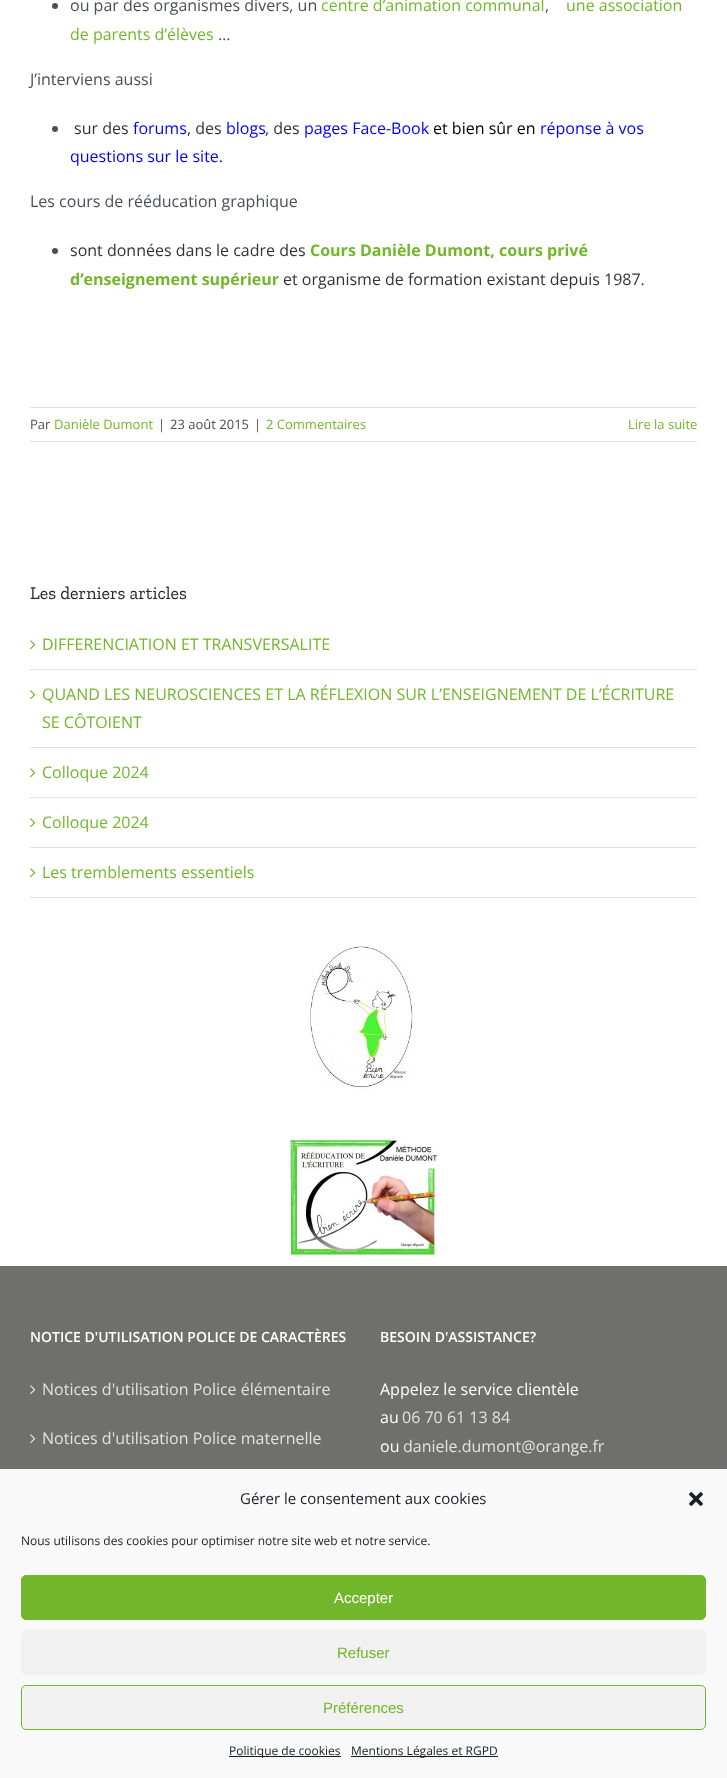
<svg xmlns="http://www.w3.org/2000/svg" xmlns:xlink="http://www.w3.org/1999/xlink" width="727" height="1778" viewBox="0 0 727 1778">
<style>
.cls-1{font:16px Open Sans;fill:#4a4e57}
.cls-2{font:16px Open Sans;fill:#72b62b}
.cls-3{font:16px Open Sans;fill:#333333}
.cls-4{font:16px Open Sans;fill:#0000ff}
.cls-5{font:16px Open Sans;fill:#000000}
.cls-6{font:bold 16px Open Sans;fill:#72b62b}
.cls-7{font:13px Open Sans;fill:#4a4e57}
.cls-8{font:13px Open Sans;fill:#72b62b}
.cls-9{font:18px Zilla Slab;fill:#212934}
.cls-10{font:600 14px Open Sans;fill:#ffffff}
.cls-11{font:16px Open Sans;fill:#e2e2e2}
.cls-12{font:16px Open Sans;fill:#ffffff}
.cls-13{font:15px Open Sans;fill:#191e23}
.cls-14{font:12px Open Sans;fill:#191e23}
.cls-15{font:15px Liberation Sans;fill:#ffffff}
.cls-16{font:15px Liberation Sans;fill:#72b62b}
</style>
<rect width="100%" height="100%" fill="#ffffff"/>
<circle fill="#4a4e57" cx="55" cy="6" r="3"/>
<circle fill="#4a4e57" cx="55" cy="129" r="3"/>
<circle fill="#4a4e57" cx="55" cy="251" r="3"/>
<rect fill="#e2e2e2" x="30" y="407" width="667" height="1"/>
<rect fill="#e2e2e2" x="30" y="441" width="667" height="1"/>
<rect fill="#e2e2e2" x="30" y="669" width="667" height="1"/>
<image xlink:href="image0.png" x="30" y="640" width="6" height="10"/>
<rect fill="#e2e2e2" x="30" y="747" width="667" height="1"/>
<image xlink:href="image0.png" x="30" y="690" width="6" height="10"/>
<rect fill="#e2e2e2" x="30" y="797" width="667" height="1"/>
<image xlink:href="image0.png" x="30" y="768" width="6" height="10"/>
<rect fill="#e2e2e2" x="30" y="847" width="667" height="1"/>
<image xlink:href="image0.png" x="30" y="818" width="6" height="10"/>
<rect fill="#e2e2e2" x="30" y="897" width="667" height="1"/>
<image xlink:href="image0.png" x="30" y="868" width="6" height="10"/>
<image xlink:href="image1.png" x="310" y="944" width="103" height="146"/>
<image xlink:href="image2.png" x="289" y="1138" width="150" height="118"/>
<rect fill="#6f6f6e" x="0" y="1266" width="727" height="203"/>
<image xlink:href="image3.png" x="30" y="1385" width="6" height="10"/>
<image xlink:href="image3.png" x="30" y="1434" width="6" height="10"/>
<rect fill="#f9f9f9" x="0" y="1469" width="727" height="309"/>
<image xlink:href="image4.png" x="689" y="1492" width="14" height="14"/>
<rect fill="#72b62b" stroke="#72b62b" x="21.5" y="1575.5" width="684" height="44" rx="4.5"/>
<rect fill="#f1f1f1" x="21" y="1630" width="685" height="45" rx="5"/>
<rect fill="#f1f1f1" stroke="#72b62b" x="21.5" y="1685.5" width="684" height="44" rx="4.5"/>
<rect fill="#191e23" x="229" y="1756" width="112" height="1"/>
<rect fill="#191e23" x="351" y="1756" width="147" height="1"/>
<text class="cls-1" x="70" y="11">ou par des organismes divers, un</text>
<text class="cls-2" x="321" y="11">centre d’animation communal</text>
<text class="cls-2" x="566" y="11">une association</text>
<text class="cls-1" x="545" y="11">,</text>
<text class="cls-2" x="70" y="40">de parents d’élèves</text>
<text class="cls-1" x="218" y="40">…</text>
<text class="cls-1" x="30" y="85">J’interviens aussi</text>
<text class="cls-3" x="74" y="134">sur des</text>
<text class="cls-4" x="133" y="134">forums</text>
<text class="cls-3" x="187" y="134">, des</text>
<text class="cls-4" x="226" y="134">blogs</text>
<text class="cls-3" x="265" y="134">, des</text>
<text class="cls-4" x="304" y="134">pages Face-Book</text>
<text class="cls-5" x="433" y="134">et bien sûr en</text>
<text class="cls-4" x="540" y="134">réponse à vos</text>
<text class="cls-4" x="70" y="162">questions sur le site.</text>
<text class="cls-1" x="30" y="207">Les cours de rééducation graphique</text>
<text class="cls-3" x="70" y="256">sont données dans le cadre des</text>
<text class="cls-6" x="310" y="256">Cours Danièle Dumont, cours privé</text>
<text class="cls-6" x="70" y="285">d’enseignement supérieur</text>
<text class="cls-3" x="283" y="285">et organisme de formation existant depuis 1987.</text>
<text class="cls-7" x="30" y="429">Par</text>
<text class="cls-8" x="54" y="429">Danièle Dumont</text>
<text class="cls-7" x="158" y="429">|</text>
<text class="cls-7" x="170" y="429">23 août 2015</text>
<text class="cls-7" x="254" y="429">|</text>
<text class="cls-8" x="266" y="429">2 Commentaires</text>
<text class="cls-8" x="628" y="429">Lire la suite</text>
<text class="cls-9" x="30" y="599">Les derniers articles</text>
<text class="cls-2" x="42" y="650">DIFFERENCIATION ET TRANSVERSALITE</text>
<text class="cls-2"><tspan x="42" y="700">QUAND LES NEUROSCIENCES ET LA RÉFLEXION SUR L’ENSEIGNEMENT DE L’ÉCRITURE</tspan><tspan x="42" y="728">SE CÔTOIENT</tspan></text>
<text class="cls-2" x="42" y="778">Colloque 2024</text>
<text class="cls-2" x="42" y="828">Colloque 2024</text>
<text class="cls-2" x="42" y="878">Les tremblements essentiels</text>
<text class="cls-10" x="30" y="1342">NOTICE D'UTILISATION POLICE DE CARACTÈRES</text>
<text class="cls-11" x="42" y="1395">Notices d'utilisation Police élémentaire</text>
<text class="cls-11" x="42" y="1444">Notices d'utilisation Police maternelle</text>
<text class="cls-10" x="380" y="1342">BESOIN D'ASSISTANCE?</text>
<text class="cls-12"><tspan x="380" y="1395">Appelez le service clientèle</tspan><tspan x="380" y="1423">au</tspan></text>
<text class="cls-11" x="402" y="1423">06 70 61 13 84</text>
<text class="cls-12" x="380" y="1452">ou</text>
<text class="cls-11" x="403" y="1452">daniele.dumont@orange.fr</text>
<text class="cls-13" x="240" y="1504">Gérer le consentement aux cookies</text>
<text class="cls-14" x="21" y="1545">Nous utilisons des cookies pour optimiser notre site web et notre service.</text>
<text class="cls-15" x="334" y="1603">Accepter</text>
<text class="cls-16" x="337" y="1658">Refuser</text>
<text class="cls-16" x="323" y="1713">Préférences</text>
<text class="cls-14" x="229" y="1755">Politique de cookies</text>
<text class="cls-14" x="351" y="1755">Mentions Légales et RGPD</text>
</svg>
